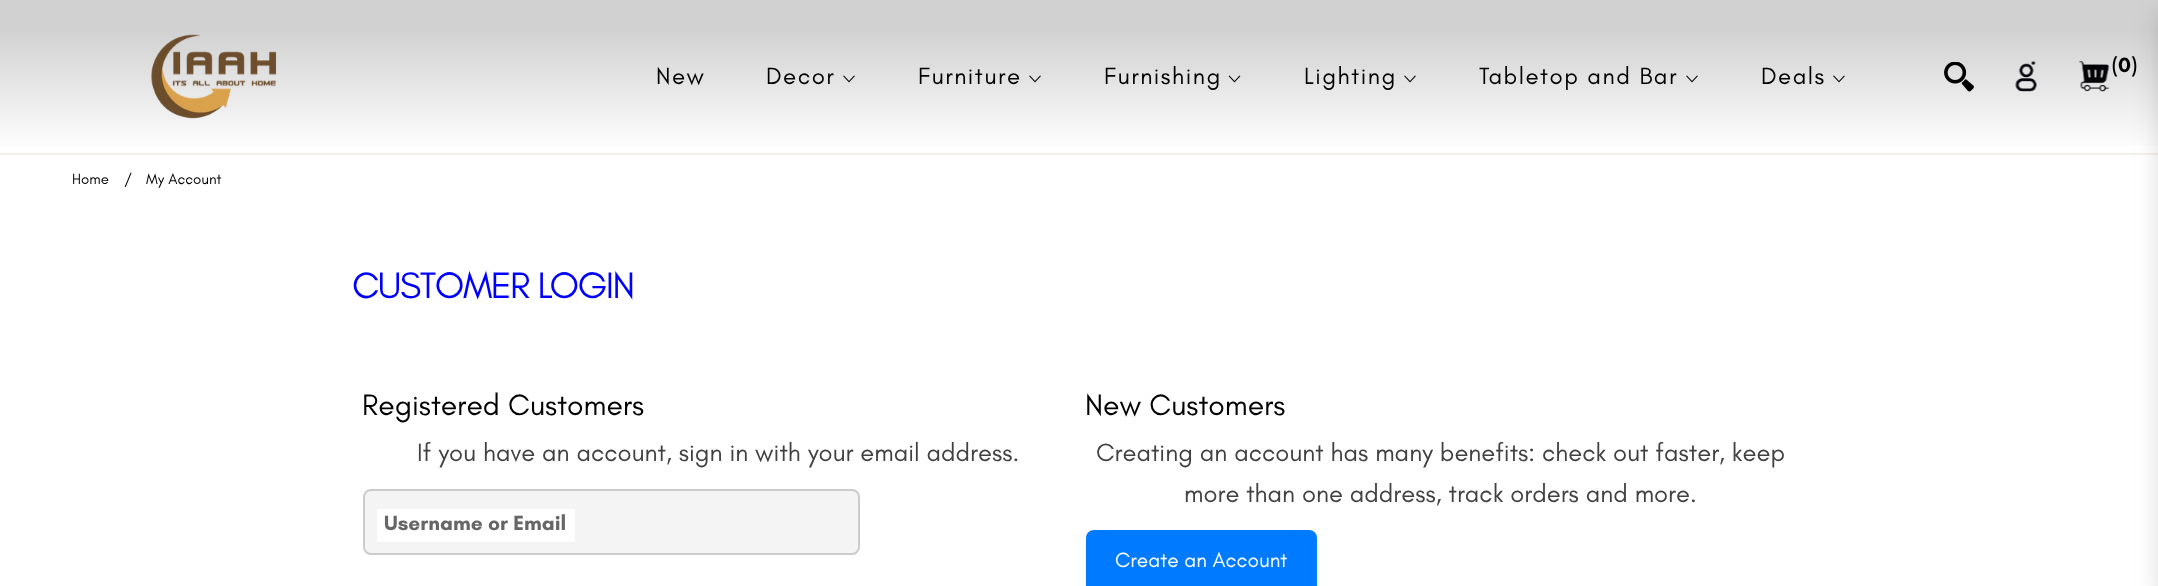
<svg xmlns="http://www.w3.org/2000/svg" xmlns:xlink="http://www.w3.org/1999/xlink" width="2158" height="586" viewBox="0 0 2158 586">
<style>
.cls-1{font:24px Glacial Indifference;letter-spacing:1.5px;fill:#000000}
.cls-2{font:bold 21px Glacial Indifference;fill:#000000}
.cls-3{font:15px Glacial Indifference;fill:#000000}
.cls-4{font:37.5px Glacial Indifference;letter-spacing:-1.5px;fill:#0000ff}
.cls-5{font:30px Glacial Indifference;fill:#000000}
.cls-6{font:25.5px Glacial Indifference;fill:#414141}
.cls-7{font:bold 21px Glacial Indifference;fill:#666666}
.cls-8{font:21px Glacial Indifference;fill:#ffffff}
</style>
<defs>
<linearGradient id="g1" gradientUnits="userSpaceOnUse" x1="1079" y1="0" x2="1079" y2="153"><stop offset="0.2" stop-color="#d1d1d1"/><stop offset="1" stop-color="#ffffff"/></linearGradient>
</defs>
<rect width="100%" height="100%" fill="#ffffff"/>
<rect fill="url(#g1)" x="0" y="0" width="2158" height="146"/>
<image xlink:href="image0.png" x="151" y="34" width="126" height="85"/>
<image xlink:href="image1.png" x="843" y="75" width="12" height="8"/>
<image xlink:href="image1.png" x="1029" y="75" width="12" height="8"/>
<image xlink:href="image2.png" x="1228" y="75" width="13" height="8"/>
<image xlink:href="image1.png" x="1404" y="75" width="12" height="8"/>
<image xlink:href="image1.png" x="1686" y="75" width="12" height="8"/>
<image xlink:href="image1.png" x="1833" y="75" width="12" height="8"/>
<image xlink:href="image3.png" x="1944" y="62" width="30" height="30"/>
<image xlink:href="image4.png" x="2015" y="61" width="22" height="31"/>
<rect fill="#f4efe9" x="0" y="153" width="2158" height="2"/>
<rect fill="#000000" fill-opacity="0.15" filter="blur(12px)" x="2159" y="12" width="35" height="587"/>
<image xlink:href="image5.png" x="2078" y="61" width="32" height="31"/>
<rect fill="#f4f4f4" stroke="#cccccc" stroke-width="2" x="364" y="490" width="495" height="64" rx="7"/>
<rect fill="#ffffff" x="377" y="509" width="198" height="33"/>
<rect fill="#007bff" x="1086" y="530" width="231" height="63" rx="8"/>
<text class="cls-1" x="656" y="84">New</text>
<text class="cls-1" x="766" y="84">Decor</text>
<text class="cls-1" x="918" y="84">Furniture</text>
<text class="cls-1" x="1104" y="84">Furnishing</text>
<text class="cls-1" x="1304" y="84">Lighting</text>
<text class="cls-1" x="1479" y="84">Tabletop and Bar</text>
<text class="cls-1" x="1761" y="84">Deals</text>
<text class="cls-2" x="2112" y="72">(0)</text>
<text class="cls-3" x="72" y="184">Home</text>
<text class="cls-3" x="124" y="184">/</text>
<text class="cls-3" x="146" y="184">My Account</text>
<text class="cls-4" x="352" y="298">CUSTOMER LOGIN</text>
<text class="cls-5" x="362" y="415">Registered Customers</text>
<text class="cls-6" x="417" y="461">If you have an account, sign in with your email address.</text>
<text class="cls-7" x="384" y="530">Username or Email</text>
<text class="cls-5" x="1085" y="415">New Customers</text>
<text class="cls-6" x="1096" y="461">Creating an account has many benefits: check out faster, keep</text>
<text class="cls-6" x="1184" y="502">more than one address, track orders and more.</text>
<text class="cls-8" x="1115" y="567">Create an Account</text>
</svg>
